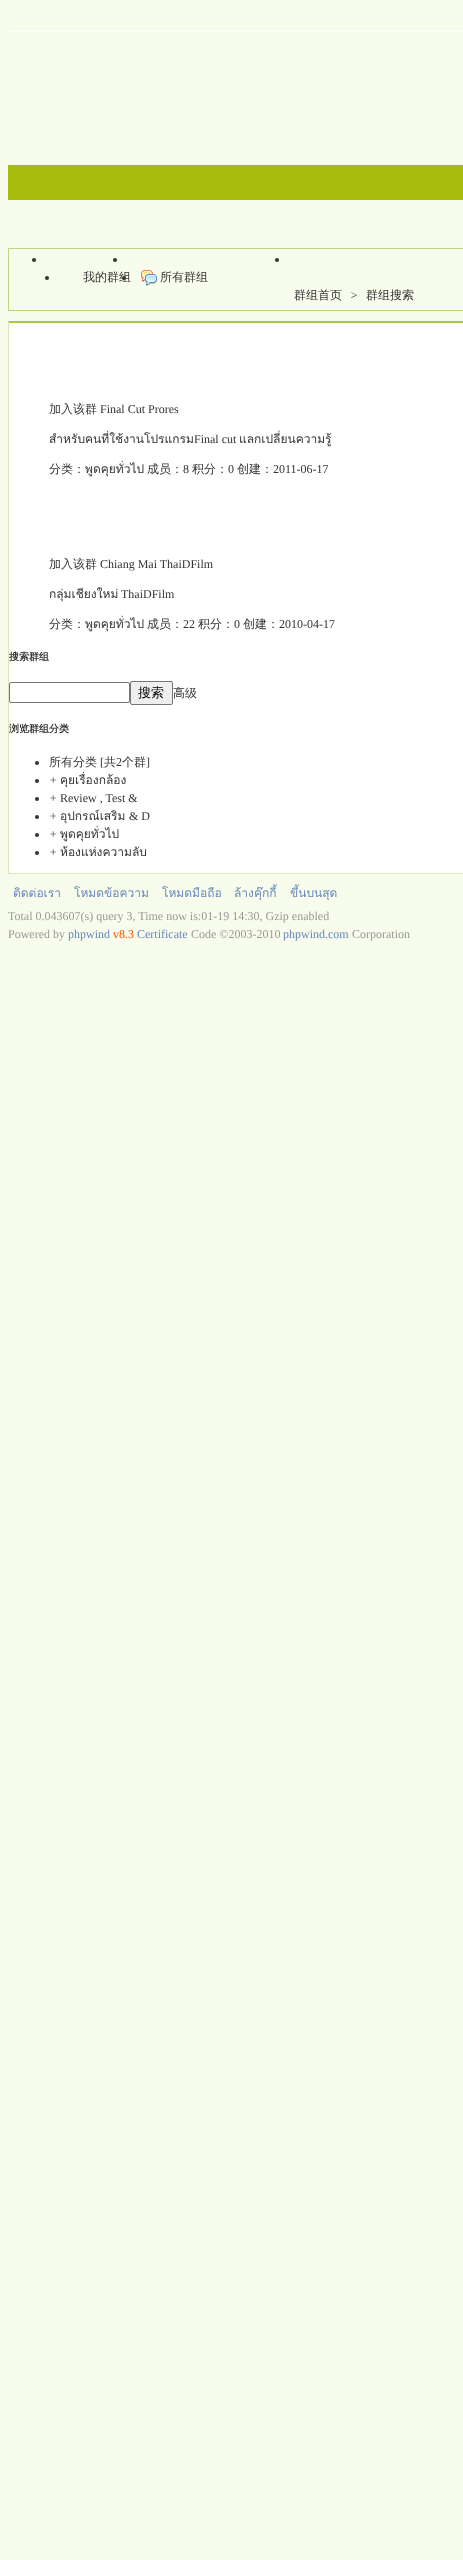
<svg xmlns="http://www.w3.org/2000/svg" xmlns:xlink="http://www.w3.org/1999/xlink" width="463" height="2560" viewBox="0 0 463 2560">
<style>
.cls-1{font:500 12px WenQuanYi Zen Hei;fill:#333333}
.cls-2{font:italic 12px Liberation Serif;fill:#333333}
.cls-3{font:12px Liberation Serif;fill:#333333}
.cls-4{font:12px Loma;fill:#333333}
.cls-5{font:bold 10px WenQuanYi Zen Hei;fill:#333333}
.cls-6{font:500 13px WenQuanYi Zen Hei;fill:#000000}
.cls-7{font:12px Loma;fill:#6688bb}
.cls-8{font:12px Liberation Serif;fill:#999999}
.cls-9{font:12px Liberation Serif;fill:#6688bb}
.cls-10{font:12px Liberation Serif;fill:#ff5500}
</style>
<rect width="100%" height="100%" fill="#f8fcec"/>
<rect fill="#ffffff" x="8" y="31" width="455" height="1"/>
<rect fill="#a6bd0e" x="8" y="165" width="455" height="35"/>
<rect fill="none" stroke="#c2d480" x="8.5" y="248.5" width="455" height="62"/>
<circle fill="#333333" cx="34" cy="260" r="2"/>
<circle fill="#333333" cx="115" cy="260" r="2"/>
<circle fill="#333333" cx="277" cy="260" r="2"/>
<circle fill="#333333" cx="47" cy="278" r="2"/>
<circle fill="#333333" cx="124" cy="278" r="2"/>
<image xlink:href="image0.png" x="141" y="270" width="16" height="16"/>
<rect fill="#ffffff" x="9" y="323" width="454" height="550"/>
<path fill="#aac642" d="M8 321H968L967 323H9Z"/>
<rect fill="#dbe6b8" x="8" y="873" width="455" height="1"/>
<path fill="#dbe6b8" d="M8 874V321L9 323V873Z"/>
<rect fill="none" stroke="#767676" x="9.5" y="682.5" width="120" height="20" rx="1.5"/>
<rect fill="#efefef" stroke="#767676" x="130.5" y="681.5" width="42" height="23" rx="1.5"/>
<circle fill="#333333" cx="37" cy="763" r="2"/>
<circle fill="#333333" cx="37" cy="781" r="2"/>
<circle fill="#333333" cx="37" cy="799" r="2"/>
<circle fill="#333333" cx="37" cy="817" r="2"/>
<circle fill="#333333" cx="37" cy="835" r="2"/>
<circle fill="#333333" cx="37" cy="853" r="2"/>
<text class="cls-1" x="83" y="281">我的群组</text>
<text class="cls-1" x="160" y="281">所有群组</text>
<text class="cls-1" x="294" y="299">群组首页</text>
<text class="cls-2" x="350" y="299">&gt;</text>
<text class="cls-1" x="366" y="299">群组搜索</text>
<text class="cls-1" x="49" y="413">加入该群</text>
<text class="cls-3" x="100" y="413">Final Cut Prores</text>
<text class="cls-4" x="49" y="443">สำหรับคนที่ใช้งานโปรแกรม</text>
<text class="cls-3" x="194" y="443">Final cut</text>
<text class="cls-4" x="239" y="443">แลกเปลี่ยนความรู้</text>
<text class="cls-1" x="49" y="473">分类：</text>
<text class="cls-4" x="85" y="473">พูดคุยทั่วไป</text>
<text class="cls-1" x="147" y="473">成员：</text>
<text class="cls-3" x="183" y="473">8</text>
<text class="cls-1" x="192" y="473">积分：</text>
<text class="cls-3" x="228" y="473">0</text>
<text class="cls-1" x="237" y="473">创建：</text>
<text class="cls-3" x="273" y="473">2011-06-17</text>
<text class="cls-1" x="49" y="568">加入该群</text>
<text class="cls-3" x="100" y="568">Chiang Mai ThaiDFilm</text>
<text class="cls-4" x="49" y="598">กลุ่มเชียงใหม่</text>
<text class="cls-3" x="121" y="598">ThaiDFilm</text>
<text class="cls-1" x="49" y="628">分类：</text>
<text class="cls-4" x="85" y="628">พูดคุยทั่วไป</text>
<text class="cls-1" x="147" y="628">成员：</text>
<text class="cls-3" x="183" y="628">22</text>
<text class="cls-1" x="198" y="628">积分：</text>
<text class="cls-3" x="234" y="628">0</text>
<text class="cls-1" x="243" y="628">创建：</text>
<text class="cls-3" x="279" y="628">2010-04-17</text>
<text class="cls-5" x="9" y="660">搜索群组</text>
<text class="cls-6" x="138" y="697">搜索</text>
<text class="cls-1" x="173" y="697">高级</text>
<text class="cls-5" x="9" y="732">浏览群组分类</text>
<text class="cls-1" x="49" y="766">所有分类</text>
<text class="cls-3" x="100" y="766">[</text>
<text class="cls-1" x="104" y="766">共</text>
<text class="cls-3" x="116" y="766">2</text>
<text class="cls-1" x="122" y="766">个群</text>
<text class="cls-3" x="146" y="766">]</text>
<text class="cls-2" x="49" y="784">+</text>
<text class="cls-4" x="60" y="784">คุยเรื่องกล้อง</text>
<text class="cls-2" x="49" y="802">+</text>
<text class="cls-3" x="60" y="802">Review , Test &amp;</text>
<text class="cls-2" x="49" y="820">+</text>
<text class="cls-4" x="60" y="820">อุปกรณ์เสริม</text>
<text class="cls-3" x="129" y="820">&amp; D</text>
<text class="cls-2" x="49" y="838">+</text>
<text class="cls-4" x="60" y="838">พูดคุยทั่วไป</text>
<text class="cls-2" x="49" y="856">+</text>
<text class="cls-4" x="60" y="856">ห้องแห่งความลับ</text>
<text class="cls-7" x="13" y="897">ติดต่อเรา</text>
<text class="cls-7" x="74" y="897">โหมดข้อความ</text>
<text class="cls-7" x="162" y="897">โหมดมือถือ</text>
<text class="cls-7" x="234" y="897">ล้างคุ๊กกี้</text>
<text class="cls-7" x="290" y="897">ขึ้นบนสุด</text>
<text class="cls-8"><tspan x="8" y="920">Total 0.043607(s) query 3, Time now is:01-19 14:30, Gzip enabled</tspan><tspan x="8" y="938">Powered by</tspan></text>
<text class="cls-9" x="68" y="938">phpwind</text>
<text class="cls-10" x="113" y="938">v8.3</text>
<text class="cls-9" x="137" y="938">Certificate</text>
<text class="cls-8" x="191" y="938">Code ©2003-2010</text>
<text class="cls-9" x="283" y="938">phpwind.com</text>
<text class="cls-8" x="352" y="938">Corporation</text>
</svg>
